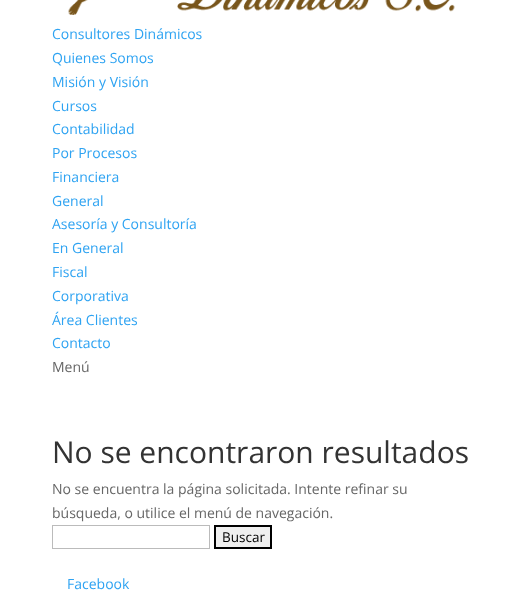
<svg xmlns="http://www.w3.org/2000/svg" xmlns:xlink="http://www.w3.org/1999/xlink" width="523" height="598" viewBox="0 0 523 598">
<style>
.cls-1{font:14px Open Sans;fill:#2ea3f2}
.cls-2{font:14px Open Sans;fill:#666666}
.cls-3{font:30px Open Sans;fill:#333333}
.cls-4{font:13.5px Open Sans;fill:#000000}
</style>
<rect width="100%" height="100%" fill="#ffffff"/>
<image xlink:href="image0.png" x="68" y="0" width="387" height="15"/>
<rect fill="none" stroke="#bbbbbb" x="52.5" y="525.5" width="157" height="23"/>
<rect fill="#efefef" stroke="#000000" stroke-width="2" x="215" y="526" width="56" height="22"/>
<text class="cls-1"><tspan x="52" y="39">Consultores Dinámicos</tspan><tspan x="52" y="63">Quienes Somos</tspan><tspan x="52" y="87">Misión y Visión</tspan><tspan x="52" y="111">Cursos</tspan><tspan x="52" y="134">Contabilidad</tspan><tspan x="52" y="158">Por Procesos</tspan><tspan x="52" y="182">Financiera</tspan><tspan x="52" y="206">General</tspan><tspan x="52" y="229">Asesoría y Consultoría</tspan><tspan x="52" y="253">En General</tspan><tspan x="52" y="277">Fiscal</tspan><tspan x="52" y="301">Corporativa</tspan><tspan x="52" y="325">Área Clientes</tspan><tspan x="52" y="348">Contacto</tspan></text>
<text class="cls-2" x="52" y="372">Menú</text>
<text class="cls-3" x="52" y="463">No se encontraron resultados</text>
<text class="cls-2"><tspan x="52" y="494">No se encuentra la página solicitada. Intente refinar su</tspan><tspan x="52" y="518">búsqueda, o utilice el menú de navegación.</tspan></text>
<text class="cls-4" x="222" y="542">Buscar</text>
<text class="cls-1" x="67" y="589">Facebook</text>
</svg>
